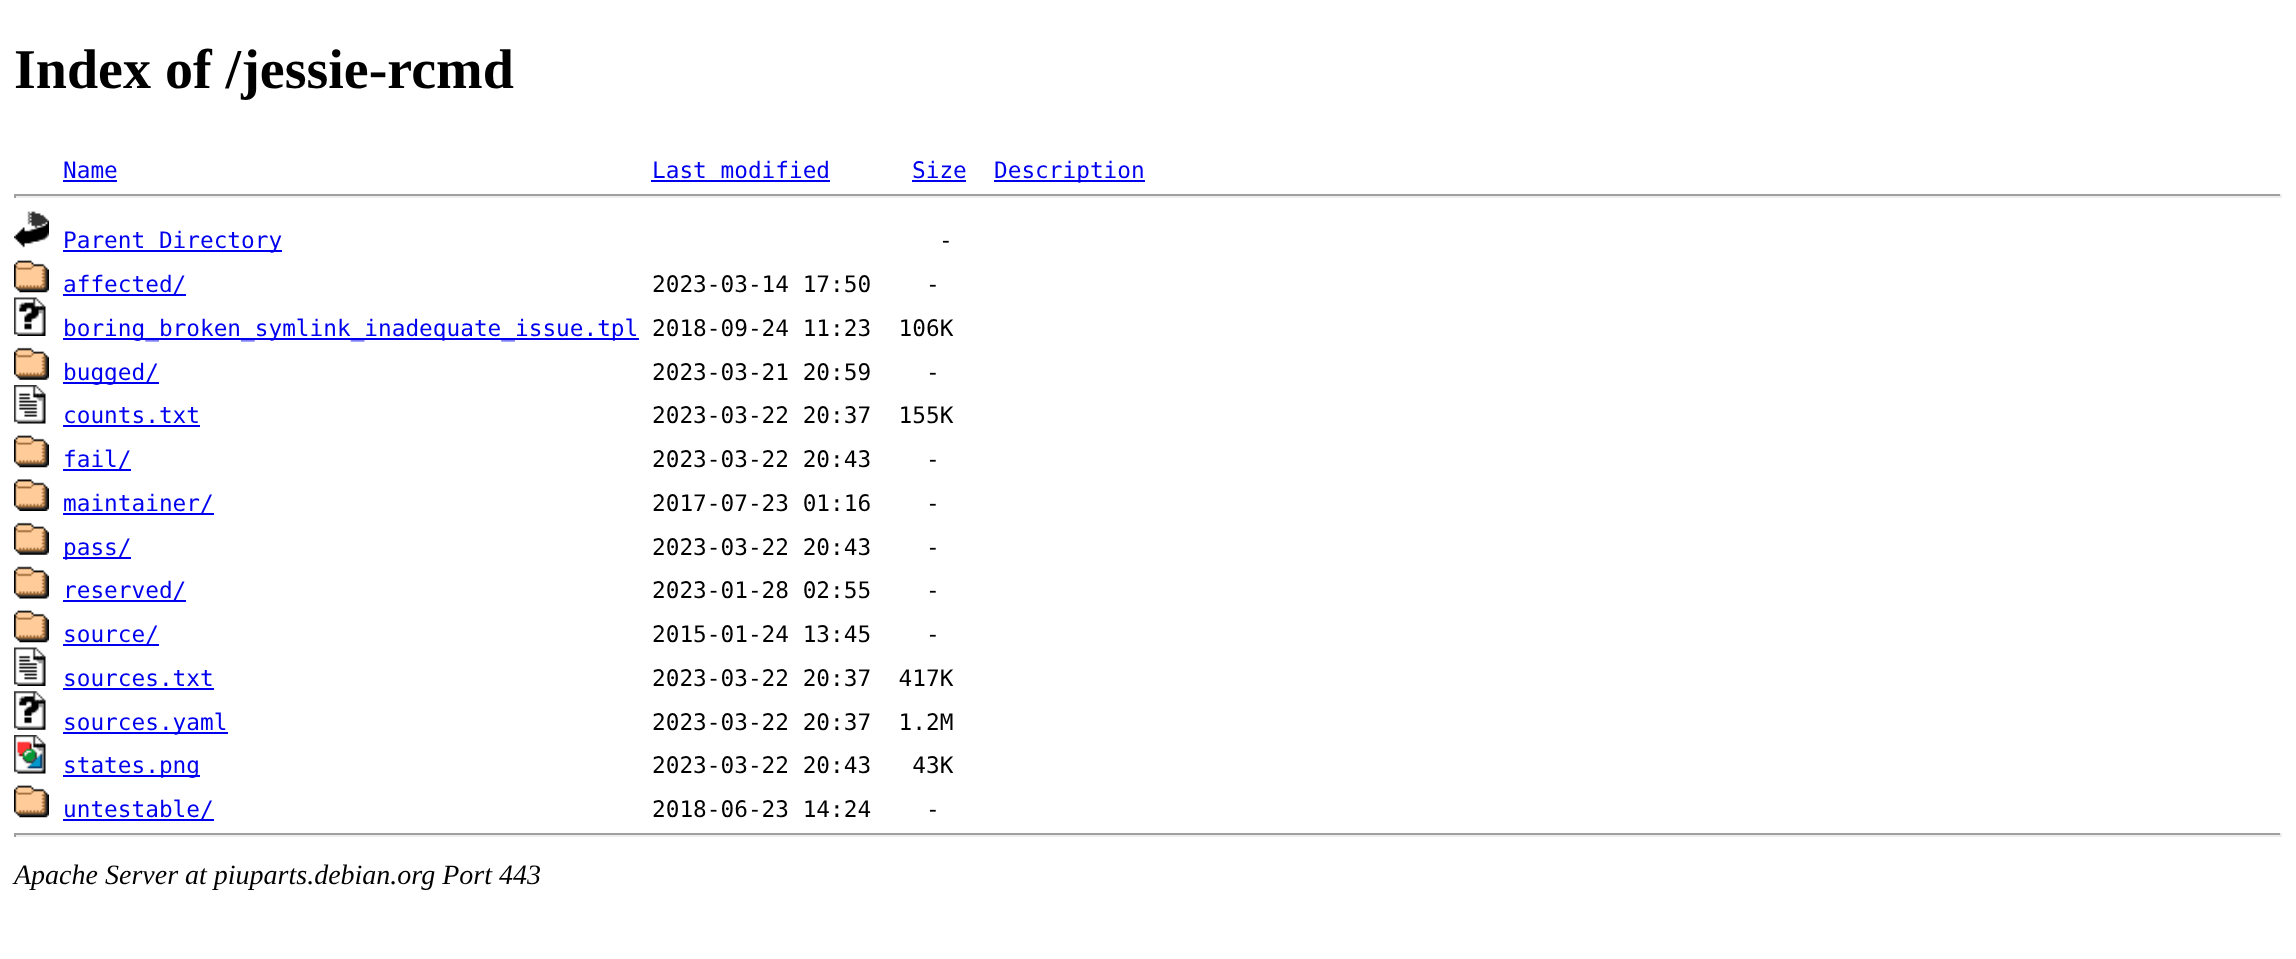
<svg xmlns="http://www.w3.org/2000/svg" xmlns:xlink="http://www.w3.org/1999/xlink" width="2296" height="959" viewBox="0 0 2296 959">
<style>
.cls-1{font:bold 56px Liberation Serif;fill:#000000}
.cls-2{font:22.75px DejaVu Sans Mono;fill:#0000ee}
.cls-3{font:22.75px DejaVu Sans Mono;fill:#000000}
.cls-4{font:italic 28px Liberation Serif;fill:#000000}
</style>
<rect width="100%" height="100%" fill="#ffffff"/>
<rect fill="#0000ee" x="63" y="180" width="54" height="2"/>
<rect fill="#0000ee" x="651" y="180" width="179" height="2"/>
<rect fill="#0000ee" x="912" y="180" width="54" height="2"/>
<rect fill="#0000ee" x="994" y="180" width="151" height="2"/>
<rect fill="#9f9f9f" x="14" y="194" width="2268" height="2"/>
<rect fill="#eeeeee" x="2280" y="194" width="2" height="4"/>
<rect fill="#eeeeee" x="14" y="196" width="2268" height="2"/>
<rect fill="#9f9f9f" x="14" y="194" width="2" height="4"/>
<image xlink:href="image0.png" x="14" y="211" width="35" height="37"/>
<rect fill="#0000ee" x="63" y="250" width="219" height="2"/>
<image xlink:href="image1.png" x="14" y="260" width="35" height="33"/>
<rect fill="#0000ee" x="63" y="294" width="123" height="2"/>
<image xlink:href="image2.png" x="14" y="297" width="32" height="39"/>
<rect fill="#0000ee" x="63" y="338" width="576" height="2"/>
<image xlink:href="image3.png" x="14" y="347" width="35" height="33"/>
<rect fill="#0000ee" x="63" y="382" width="96" height="2"/>
<image xlink:href="image4.png" x="14" y="385" width="32" height="39"/>
<rect fill="#0000ee" x="63" y="425" width="137" height="2"/>
<image xlink:href="image1.png" x="14" y="435" width="35" height="33"/>
<rect fill="#0000ee" x="63" y="469" width="68" height="2"/>
<image xlink:href="image5.png" x="14" y="479" width="35" height="32"/>
<rect fill="#0000ee" x="63" y="513" width="151" height="2"/>
<image xlink:href="image3.png" x="14" y="522" width="35" height="33"/>
<rect fill="#0000ee" x="63" y="557" width="68" height="2"/>
<image xlink:href="image6.png" x="14" y="566" width="35" height="33"/>
<rect fill="#0000ee" x="63" y="600" width="123" height="2"/>
<image xlink:href="image1.png" x="14" y="610" width="35" height="33"/>
<rect fill="#0000ee" x="63" y="644" width="96" height="2"/>
<image xlink:href="image7.png" x="14" y="647" width="32" height="39"/>
<rect fill="#0000ee" x="63" y="688" width="151" height="2"/>
<image xlink:href="image8.png" x="14" y="691" width="32" height="39"/>
<rect fill="#0000ee" x="63" y="732" width="165" height="2"/>
<image xlink:href="image9.png" x="14" y="735" width="32" height="39"/>
<rect fill="#0000ee" x="63" y="775" width="137" height="2"/>
<image xlink:href="image1.png" x="14" y="785" width="35" height="33"/>
<rect fill="#0000ee" x="63" y="819" width="151" height="2"/>
<rect fill="#9f9f9f" x="14" y="833" width="2268" height="2"/>
<rect fill="#eeeeee" x="2280" y="833" width="2" height="4"/>
<rect fill="#eeeeee" x="14" y="835" width="2268" height="2"/>
<rect fill="#9f9f9f" x="14" y="833" width="2" height="4"/>
<text class="cls-1" x="14" y="88">Index of /jessie-rcmd</text>
<text class="cls-2" x="63" y="178">Name</text>
<text class="cls-2" x="652" y="178">Last modified</text>
<text class="cls-2" x="912" y="178">Size</text>
<text class="cls-2" x="994" y="178">Description</text>
<text class="cls-2" x="63" y="248">Parent Directory</text>
<text class="cls-3" x="939" y="248">-</text>
<text class="cls-2" x="63" y="292">affected/</text>
<text class="cls-3" xml:space="preserve" x="652" y="292">2023-03-14 17:50    -</text>
<text class="cls-2" x="63" y="336">boring_broken_symlink_inadequate_issue.tpl</text>
<text class="cls-3" xml:space="preserve" x="652" y="336">2018-09-24 11:23  106K</text>
<text class="cls-2" x="63" y="380">bugged/</text>
<text class="cls-3" xml:space="preserve" x="652" y="380">2023-03-21 20:59    -</text>
<text class="cls-2" x="63" y="423">counts.txt</text>
<text class="cls-3" xml:space="preserve" x="652" y="423">2023-03-22 20:37  155K</text>
<text class="cls-2" x="63" y="467">fail/</text>
<text class="cls-3" xml:space="preserve" x="652" y="467">2023-03-22 20:43    -</text>
<text class="cls-2" x="63" y="511">maintainer/</text>
<text class="cls-3" xml:space="preserve" x="652" y="511">2017-07-23 01:16    -</text>
<text class="cls-2" x="63" y="555">pass/</text>
<text class="cls-3" xml:space="preserve" x="652" y="555">2023-03-22 20:43    -</text>
<text class="cls-2" x="63" y="598">reserved/</text>
<text class="cls-3" xml:space="preserve" x="652" y="598">2023-01-28 02:55    -</text>
<text class="cls-2" x="63" y="642">source/</text>
<text class="cls-3" xml:space="preserve" x="652" y="642">2015-01-24 13:45    -</text>
<text class="cls-2" x="63" y="686">sources.txt</text>
<text class="cls-3" xml:space="preserve" x="652" y="686">2023-03-22 20:37  417K</text>
<text class="cls-2" x="63" y="730">sources.yaml</text>
<text class="cls-3" xml:space="preserve" x="652" y="730">2023-03-22 20:37  1.2M</text>
<text class="cls-2" x="63" y="773">states.png</text>
<text class="cls-3" xml:space="preserve" x="652" y="773">2023-03-22 20:43   43K</text>
<text class="cls-2" x="63" y="817">untestable/</text>
<text class="cls-3" xml:space="preserve" x="652" y="817">2018-06-23 14:24    -</text>
<text class="cls-4" x="14" y="884">Apache Server at piuparts.debian.org Port 443</text>
</svg>
